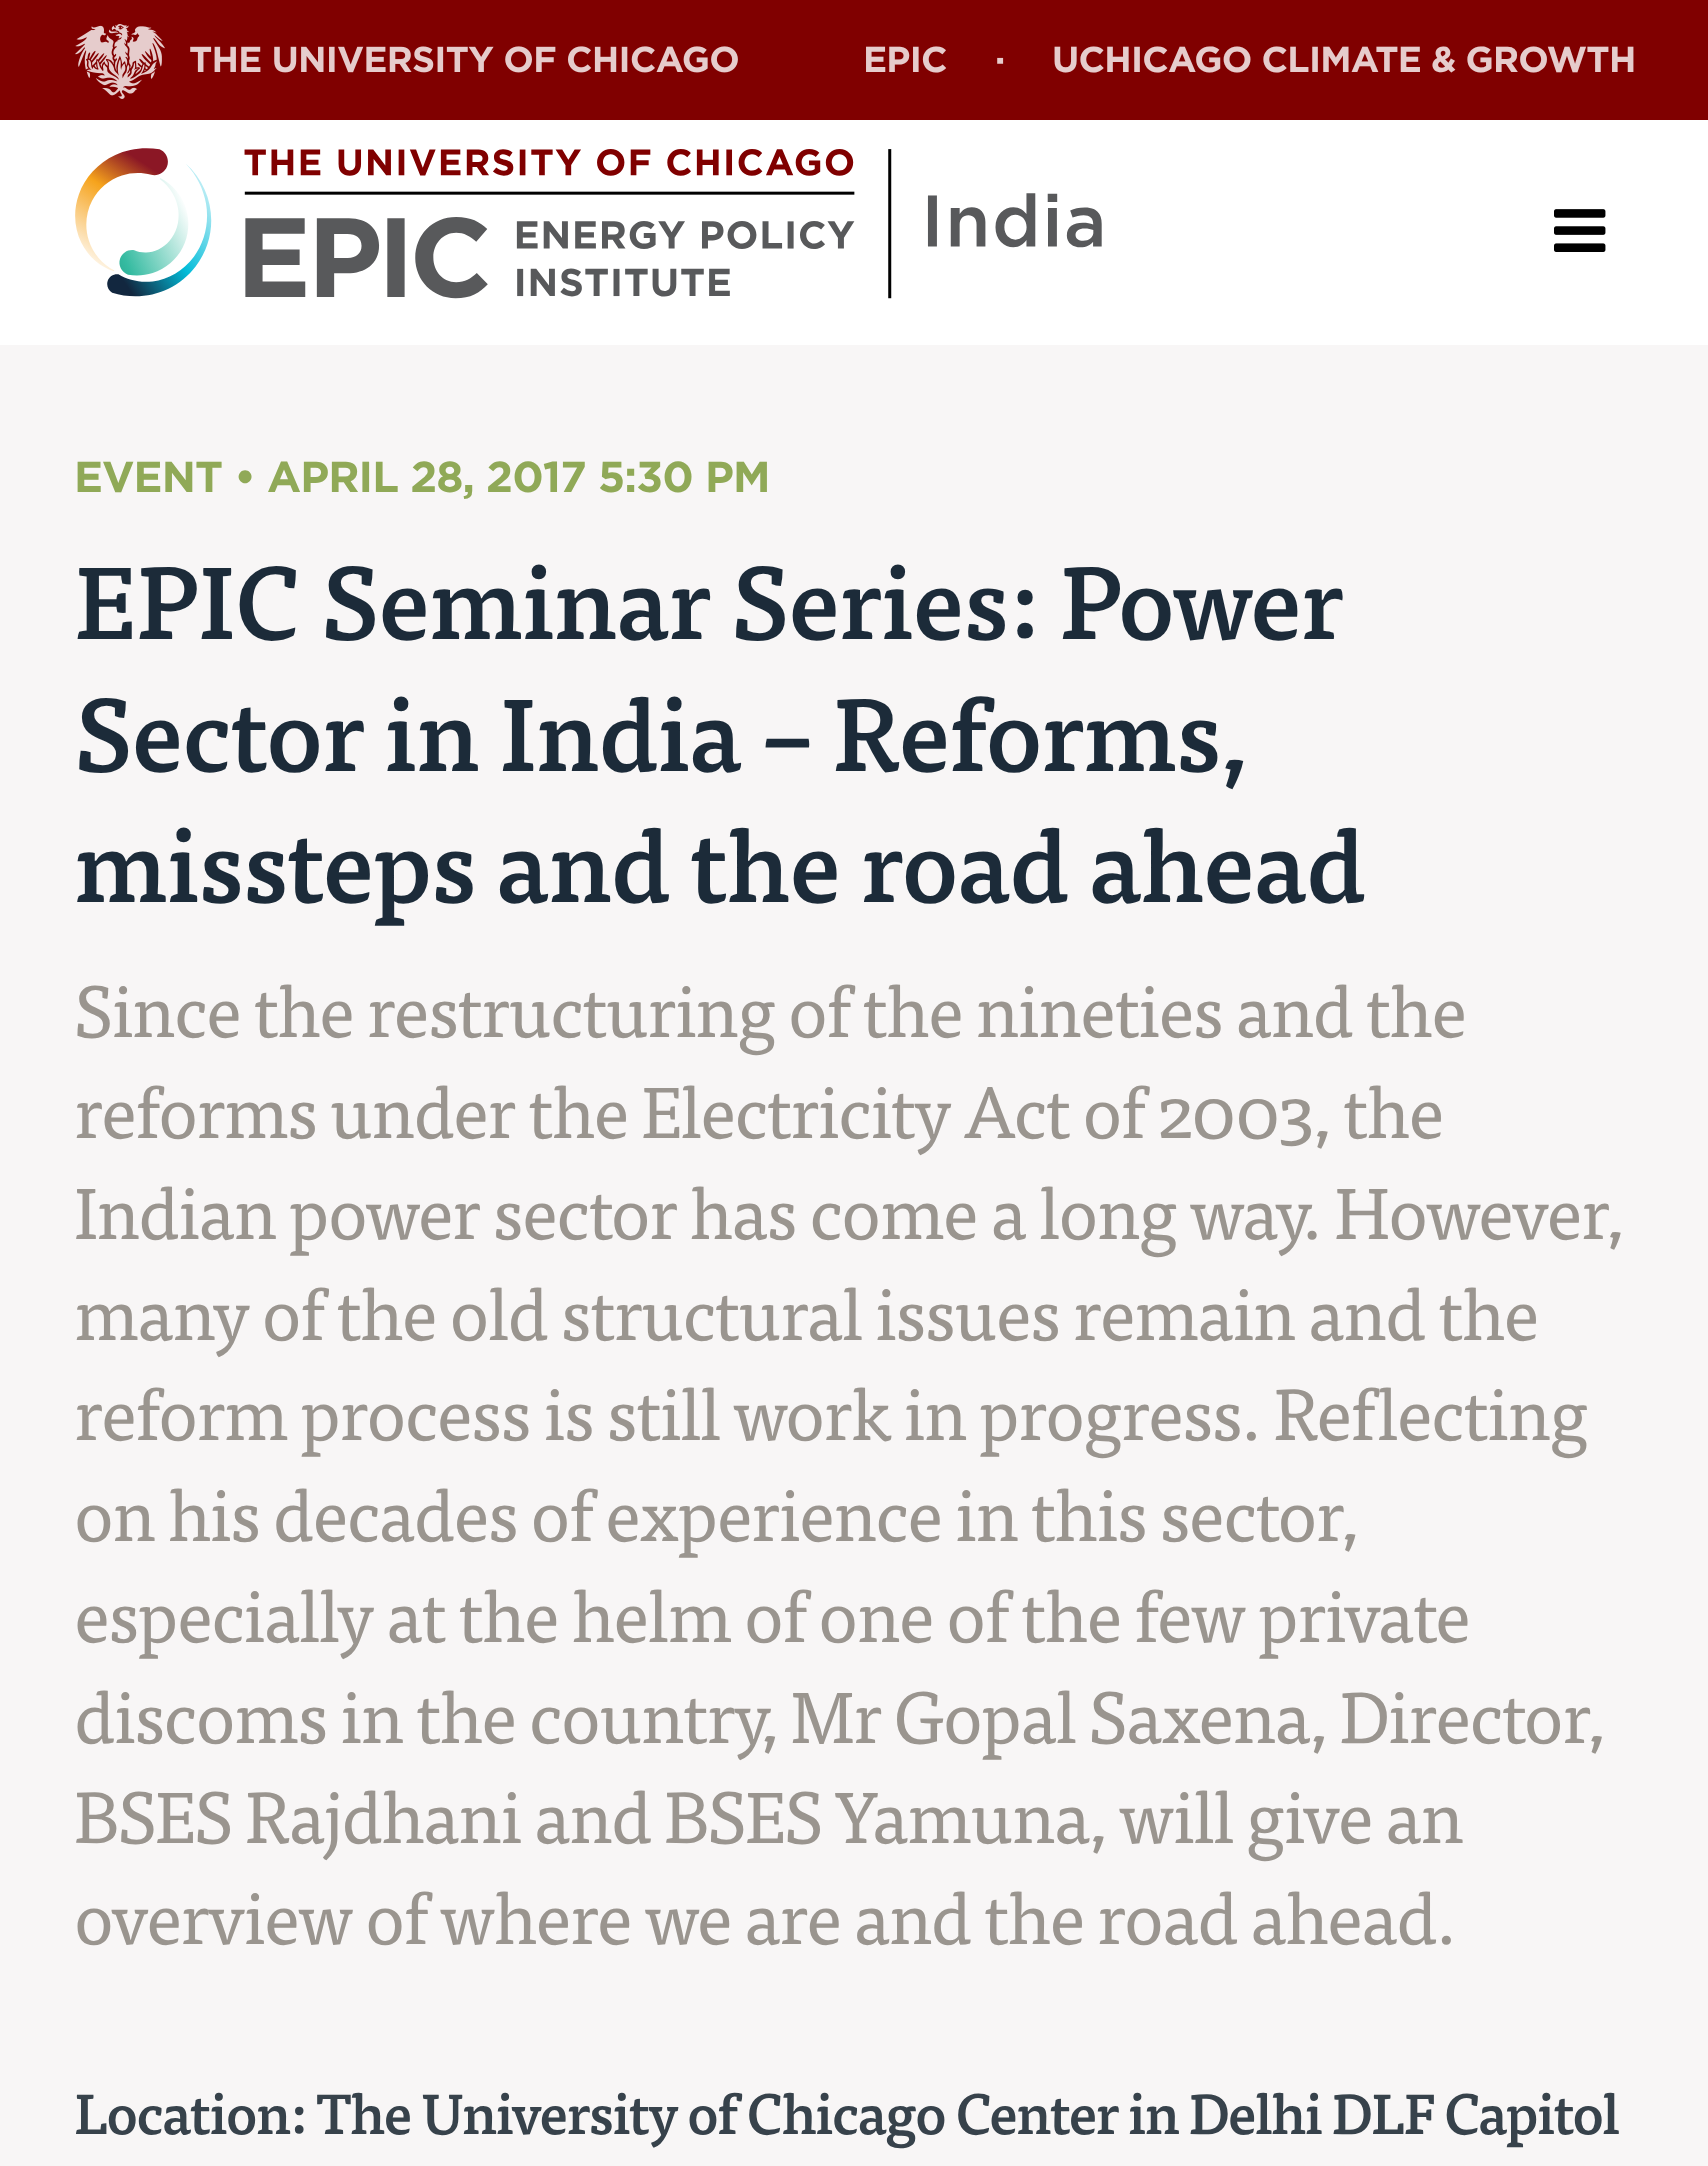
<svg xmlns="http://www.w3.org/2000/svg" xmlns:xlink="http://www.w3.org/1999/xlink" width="1708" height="2166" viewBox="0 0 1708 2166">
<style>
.cls-1{font:bold 36px Gotham;letter-spacing:-0.75px;fill:#e6cccc}
.cls-2{font:bold 43.25px Gotham;letter-spacing:-0.9px;fill:#90a957}
.cls-3{font:500 101.3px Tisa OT;letter-spacing:-0.9px;fill:#1c2b39}
.cls-4{font:72px Tisa OT;letter-spacing:-1.5px;fill:#9a958f}
.cls-5{font:500 56.15px Tisa OT;letter-spacing:-1.5px;fill:#37424b}
</style>
<rect width="100%" height="100%" fill="#f8f6f6"/>
<rect fill="#ffffff" x="0" y="120" width="1708" height="225"/>
<rect fill="#800000" x="0" y="0" width="1708" height="120"/>
<image xlink:href="image0.png" x="75" y="24" width="90" height="75"/>
<image xlink:href="image1.png" x="190" y="46" width="548" height="27"/>
<image xlink:href="image2.png" x="75" y="148" width="1027" height="151"/>
<image xlink:href="image3.png" x="1554" y="209" width="52" height="43"/>
<text class="cls-1" x="863" y="72">EPIC</text>
<text class="cls-1" x="995" y="72">·</text>
<text class="cls-1" x="1052" y="72">UCHICAGO CLIMATE &amp; GROWTH</text>
<text class="cls-2" x="74" y="492">EVENT • APRIL 28, 2017 5:30 PM</text>
<text class="cls-3"><tspan x="74" y="639">EPIC Seminar Series: Power</tspan><tspan x="74" y="771">Sector in India – Reforms,</tspan><tspan x="74" y="902">missteps and the road ahead</tspan></text>
<text class="cls-4"><tspan x="74" y="1037">Since the restructuring of the nineties and the</tspan><tspan x="74" y="1138">reforms under the Electricity Act of 2003, the</tspan><tspan x="74" y="1239">Indian power sector has come a long way. However,</tspan><tspan x="74" y="1340">many of the old structural issues remain and the</tspan><tspan x="74" y="1440">reform process is still work in progress. Reflecting</tspan><tspan x="74" y="1541">on his decades of experience in this sector,</tspan><tspan x="74" y="1642">especially at the helm of one of the few private</tspan><tspan x="74" y="1743">discoms in the country, Mr Gopal Saxena, Director,</tspan><tspan x="74" y="1843">BSES Rajdhani and BSES Yamuna, will give an</tspan><tspan x="74" y="1944">overview of where we are and the road ahead.</tspan></text>
<text class="cls-5" x="74" y="2134" word-spacing="-0.25">Location: The University of Chicago Center in Delhi DLF Capitol</text>
</svg>
